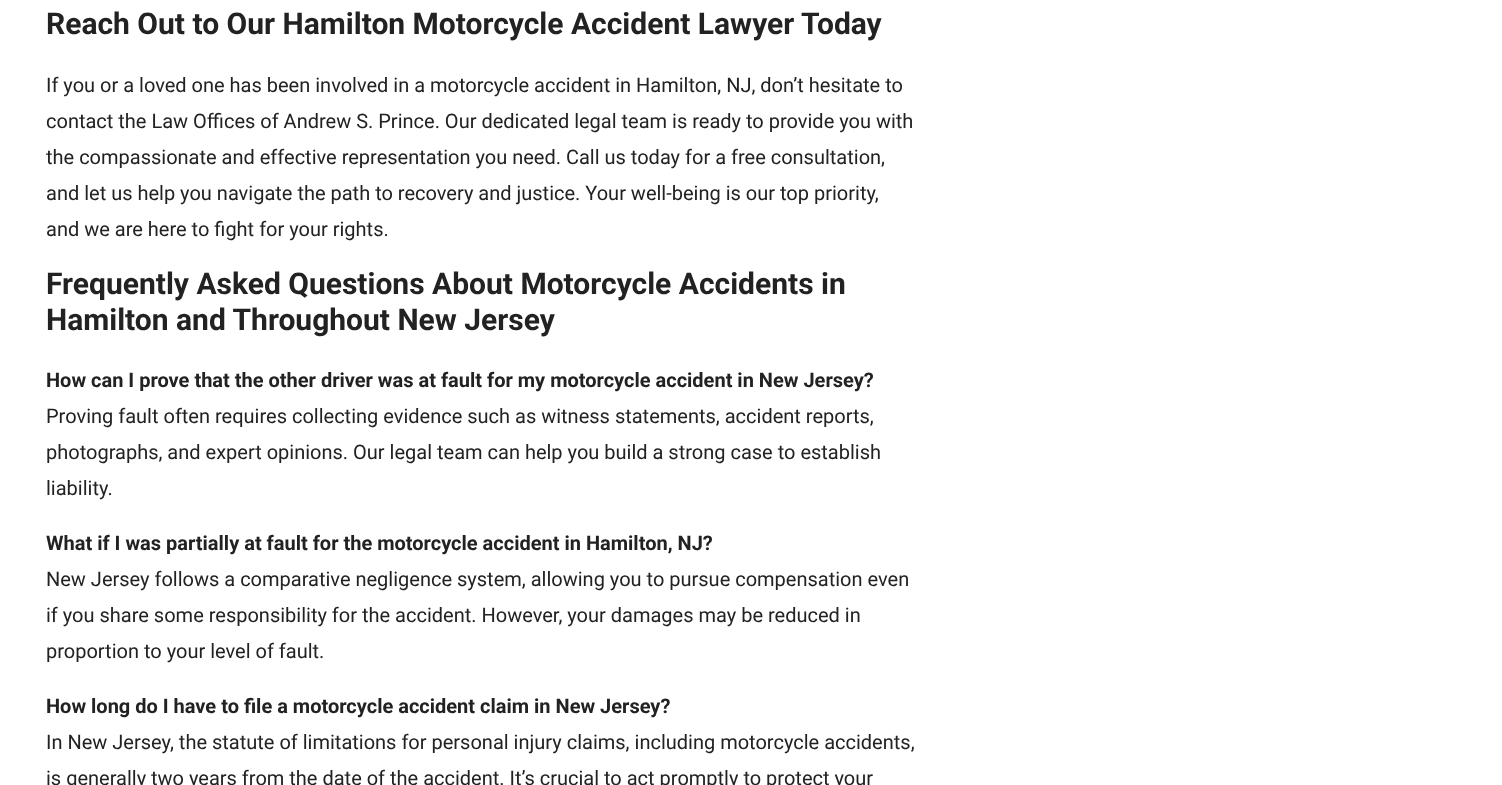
<svg xmlns="http://www.w3.org/2000/svg" xmlns:xlink="http://www.w3.org/1999/xlink" width="1502" height="785" viewBox="0 0 1502 785">
<style>
.cls-1{font:bold 30px Roboto;fill:#222222}
.cls-2{font:20px Roboto;fill:#222222}
.cls-3{font:bold 20px Roboto;fill:#222222}
</style>
<rect width="100%" height="100%" fill="#ffffff"/>
<text class="cls-1" x="46" y="34">Reach Out to Our Hamilton Motorcycle Accident Lawyer Today</text>
<text class="cls-2"><tspan x="46" y="92">If you or a loved one has been involved in a motorcycle accident in Hamilton, NJ, don’t hesitate to</tspan><tspan x="46" y="128">contact the Law Offices of Andrew S. Prince. Our dedicated legal team is ready to provide you with</tspan><tspan x="46" y="164">the compassionate and effective representation you need. Call us today for a free consultation,</tspan><tspan x="46" y="200">and let us help you navigate the path to recovery and justice. Your well-being is our top priority,</tspan><tspan x="46" y="236">and we are here to fight for your rights.</tspan></text>
<text class="cls-1"><tspan x="46" y="294">Frequently Asked Questions About Motorcycle Accidents in</tspan><tspan x="46" y="330">Hamilton and Throughout New Jersey</tspan></text>
<text class="cls-3" x="46" y="387">How can I prove that the other driver was at fault for my motorcycle accident in New Jersey?</text>
<text class="cls-2"><tspan x="46" y="423">Proving fault often requires collecting evidence such as witness statements, accident reports,</tspan><tspan x="46" y="459">photographs, and expert opinions. Our legal team can help you build a strong case to establish</tspan><tspan x="46" y="495">liability.</tspan></text>
<text class="cls-3" x="46" y="550">What if I was partially at fault for the motorcycle accident in Hamilton, NJ?</text>
<text class="cls-2"><tspan x="46" y="586">New Jersey follows a comparative negligence system, allowing you to pursue compensation even</tspan><tspan x="46" y="622">if you share some responsibility for the accident. However, your damages may be reduced in</tspan><tspan x="46" y="658">proportion to your level of fault.</tspan></text>
<text class="cls-3" x="46" y="713">How long do I have to file a motorcycle accident claim in New Jersey?</text>
<text class="cls-2"><tspan x="46" y="749">In New Jersey, the statute of limitations for personal injury claims, including motorcycle accidents,</tspan><tspan x="46" y="785">is generally two years from the date of the accident. It’s crucial to act promptly to protect your</tspan></text>
</svg>
